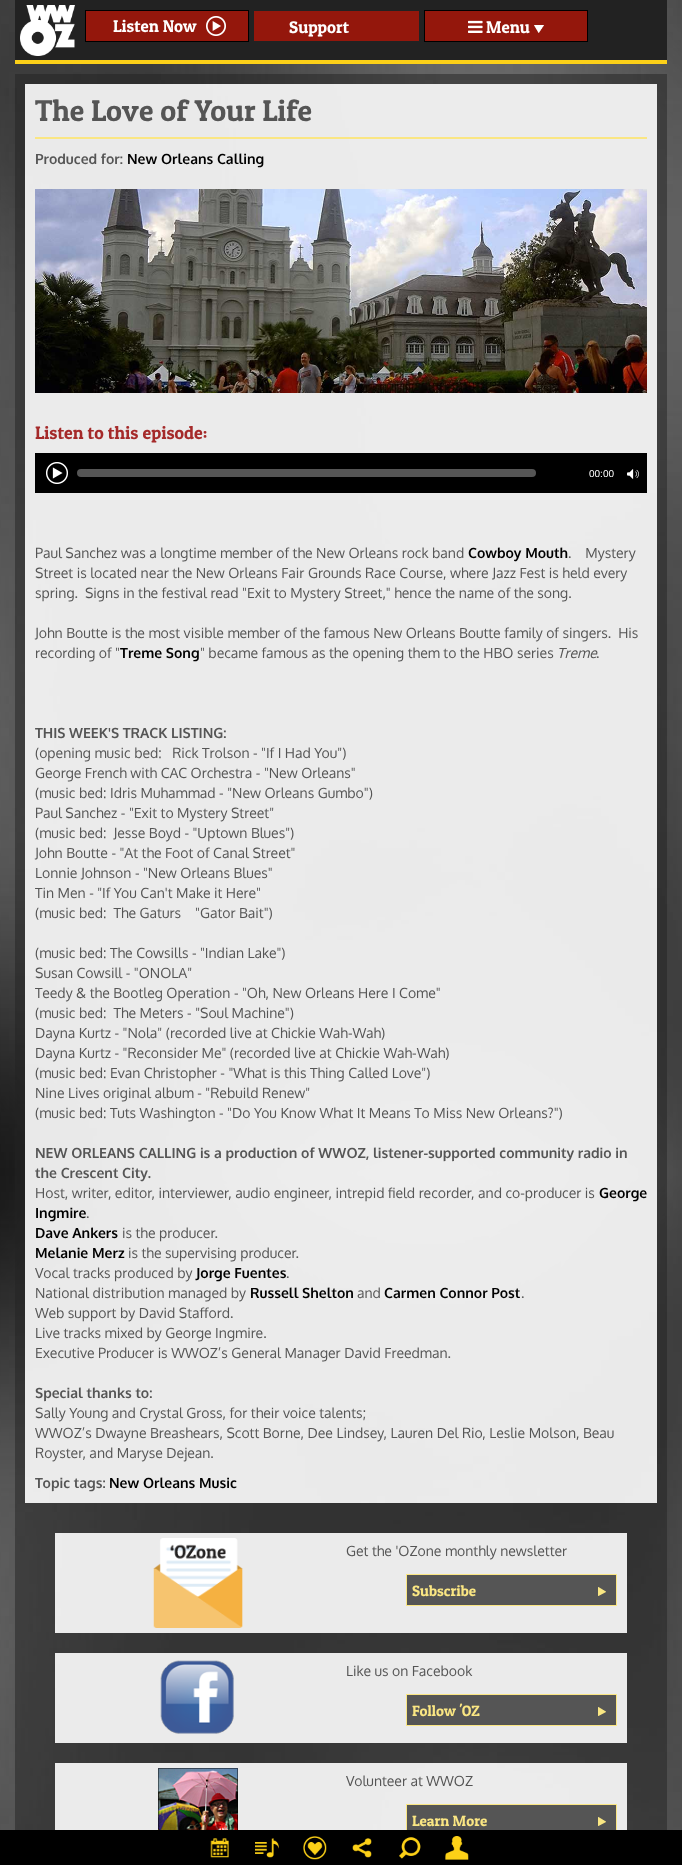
<svg xmlns="http://www.w3.org/2000/svg" xmlns:xlink="http://www.w3.org/1999/xlink" width="682" height="1865" viewBox="0 0 682 1865">
<style>
.cls-1{font:17px Patua One;fill:#ffffff}
.cls-2{font:30px Patua One;fill:#555555}
.cls-3{font:bold 14px Oxygen;fill:#555555}
.cls-4{font:bold 14px Oxygen;fill:#000000}
.cls-5{font:18px Patua One;fill:#a52a2a}
.cls-6{font:10px Liberation Sans;fill:#ffffff}
.cls-7{font:14px Oxygen;fill:#555555}
.cls-8{font:italic 14px Oxygen;fill:#555555}
.cls-9{font:15px Patua One;fill:#fae683}
</style>
<rect width="100%" height="100%" fill="#ffffff"/>
<image xlink:href="image0.png" x="0" y="0" width="682" height="1830"/>
<rect fill="#fcd018" x="15" y="60" width="652" height="4"/>
<rect fill="#222222" x="15" y="0" width="652" height="60"/>
<image xlink:href="image1.png" x="20" y="5" width="55" height="51"/>
<rect fill="#94170c" stroke="#000000" x="85.5" y="10.5" width="163" height="31"/>
<image xlink:href="image2.png" x="206" y="16" width="20" height="20"/>
<rect fill="#94170c" x="254" y="11" width="165" height="30"/>
<rect fill="#94170c" stroke="#000000" x="424.5" y="10.5" width="163" height="31"/>
<image xlink:href="image3.png" x="468" y="20" width="15" height="13"/>
<image xlink:href="image4.png" x="534" y="25" width="10" height="8"/>
<rect fill="#ffffff" fill-opacity="0.9" x="25" y="84" width="632" height="1419"/>
<rect fill="#fae683" x="35" y="137" width="612" height="2"/>
<image xlink:href="image5.png" x="35" y="189" width="612" height="204"/>
<rect fill="#000000" x="35" y="453" width="612" height="40"/>
<image xlink:href="image6.png" x="46" y="462" width="22" height="22"/>
<image xlink:href="image7.png" x="627" y="469" width="12" height="10"/>
<rect fill="#555555" x="77" y="469" width="459" height="8" rx="4"/>
<rect fill="#ffffff" fill-opacity="0.9" x="55" y="1533" width="572" height="100"/>
<image xlink:href="image8.png" x="153" y="1538" width="90" height="90"/>
<rect fill="#555555" x="407" y="1575" width="209" height="30"/>
<image xlink:href="image9.png" x="598" y="1587" width="8" height="9"/>
<rect fill="none" stroke="#fae683" x="406.5" y="1574.5" width="210" height="31"/>
<rect fill="#ffffff" fill-opacity="0.9" x="55" y="1653" width="572" height="90"/>
<image xlink:href="image10.png" x="160" y="1660" width="74" height="74"/>
<rect fill="#555555" x="407" y="1695" width="209" height="30"/>
<image xlink:href="image9.png" x="598" y="1707" width="8" height="9"/>
<rect fill="none" stroke="#fae683" x="406.5" y="1694.5" width="210" height="31"/>
<rect fill="#ffffff" fill-opacity="0.9" x="55" y="1763" width="572" height="67"/>
<image xlink:href="image11.png" x="158" y="1768" width="80" height="62"/>
<rect fill="#555555" x="407" y="1805" width="209" height="25"/>
<image xlink:href="image9.png" x="598" y="1817" width="8" height="9"/>
<rect fill="none" stroke="#fae683" x="406.5" y="1804.5" width="210" height="31"/>
<rect fill="#000000" x="0" y="1830" width="682" height="35"/>
<image xlink:href="image12.png" x="210" y="1838" width="19" height="20"/>
<image xlink:href="image13.png" x="255" y="1838" width="24" height="20"/>
<image xlink:href="image14.png" x="303" y="1836" width="24" height="24"/>
<image xlink:href="image15.png" x="352" y="1838" width="20" height="20"/>
<image xlink:href="image16.png" x="399" y="1837" width="22" height="22"/>
<image xlink:href="image17.png" x="445" y="1836" width="24" height="24"/>
<text class="cls-1" x="113" y="32">Listen Now</text>
<text class="cls-1" x="289" y="33">Support</text>
<text class="cls-1" x="486" y="33">Menu</text>
<text class="cls-2" x="35" y="121">The Love of Your Life</text>
<text class="cls-3" x="35" y="164">Produced for:</text>
<text class="cls-4" x="127" y="164">New Orleans Calling</text>
<text class="cls-5" x="35" y="439">Listen to this episode:</text>
<text class="cls-6" x="589" y="477">00:00</text>
<text class="cls-7" x="35" y="558">Paul Sanchez was a longtime member of the New Orleans rock band</text>
<text class="cls-4" x="468" y="558">Cowboy Mouth</text>
<text class="cls-7" xml:space="preserve" x="568" y="558">.    Mystery</text>
<text class="cls-7" xml:space="preserve"><tspan x="35" y="578">Street is located near the New Orleans Fair Grounds Race Course, where Jazz Fest is held every</tspan><tspan x="35" y="598">spring.  Signs in the festival read "Exit to Mystery Street," hence the name of the song.</tspan></text>
<text class="cls-7" xml:space="preserve"><tspan x="35" y="638">John Boutte is the most visible member of the famous New Orleans Boutte family of singers.  His</tspan><tspan x="35" y="658">recording of "</tspan></text>
<text class="cls-4" x="120" y="658">Treme Song</text>
<text class="cls-7" x="200" y="658">" became famous as the opening them to the HBO series</text>
<text class="cls-8" x="557" y="658">Treme</text>
<text class="cls-7" x="596" y="658">.</text>
<text class="cls-3" x="35" y="738">THIS WEEK'S TRACK LISTING:</text>
<text class="cls-7" xml:space="preserve"><tspan x="35" y="758">(opening music bed:   Rick Trolson - "If I Had You")</tspan><tspan x="35" y="778">George French with CAC Orchestra - "New Orleans"</tspan><tspan x="35" y="798">(music bed: Idris Muhammad - "New Orleans Gumbo")</tspan><tspan x="35" y="818">Paul Sanchez - "Exit to Mystery Street"</tspan><tspan x="35" y="838">(music bed:  Jesse Boyd - "Uptown Blues")</tspan><tspan x="35" y="858">John Boutte - "At the Foot of Canal Street"</tspan><tspan x="35" y="878">Lonnie Johnson - "New Orleans Blues"</tspan><tspan x="35" y="898">Tin Men - "If You Can't Make it Here"</tspan><tspan x="35" y="918">(music bed:  The Gaturs    "Gator Bait")</tspan></text>
<text class="cls-7" xml:space="preserve"><tspan x="35" y="958">(music bed: The Cowsills - "Indian Lake")</tspan><tspan x="35" y="978">Susan Cowsill - "ONOLA"</tspan><tspan x="35" y="998">Teedy &amp; the Bootleg Operation - "Oh, New Orleans Here I Come"</tspan><tspan x="35" y="1018">(music bed:  The Meters - "Soul Machine")</tspan><tspan x="35" y="1038">Dayna Kurtz - "Nola" (recorded live at Chickie Wah-Wah)</tspan><tspan x="35" y="1058">Dayna Kurtz - "Reconsider Me" (recorded live at Chickie Wah-Wah)</tspan><tspan x="35" y="1078">(music bed: Evan Christopher - "What is this Thing Called Love")</tspan><tspan x="35" y="1098">Nine Lives original album - "Rebuild Renew"</tspan><tspan x="35" y="1118">(music bed: Tuts Washington - "Do You Know What It Means To Miss New Orleans?")</tspan></text>
<text class="cls-3"><tspan x="35" y="1158">NEW ORLEANS CALLING is a production of WWOZ, listener-supported community radio in</tspan><tspan x="35" y="1178">the Crescent City.</tspan></text>
<text class="cls-7" x="35" y="1198">Host, writer, editor, interviewer, audio engineer, intrepid field recorder, and co-producer is</text>
<text class="cls-4" x="599" y="1198">George</text>
<text class="cls-4" x="35" y="1218">Ingmire</text>
<text class="cls-7" x="86" y="1218">.</text>
<text class="cls-4" x="35" y="1238">Dave Ankers</text>
<text class="cls-7" x="122" y="1238">is the producer.</text>
<text class="cls-4" x="35" y="1258">Melanie Merz</text>
<text class="cls-7" x="128" y="1258">is the supervising producer.</text>
<text class="cls-7" x="35" y="1278">Vocal tracks produced by</text>
<text class="cls-4" x="196" y="1278">Jorge Fuentes</text>
<text class="cls-7" x="286" y="1278">.</text>
<text class="cls-7" x="35" y="1298">National distribution managed by</text>
<text class="cls-4" x="250" y="1298">Russell Shelton</text>
<text class="cls-7" x="357" y="1298">and</text>
<text class="cls-4" x="384" y="1298">Carmen Connor Post</text>
<text class="cls-7" x="521" y="1298">.</text>
<text class="cls-7"><tspan x="35" y="1318">Web support by David Stafford.</tspan><tspan x="35" y="1338">Live tracks mixed by George Ingmire.</tspan><tspan x="35" y="1358">Executive Producer is WWOZ’s General Manager David Freedman.</tspan></text>
<text class="cls-3" x="35" y="1398">Special thanks to:</text>
<text class="cls-7"><tspan x="35" y="1418">Sally Young and Crystal Gross, for their voice talents;</tspan><tspan x="35" y="1438">WWOZ’s Dwayne Breashears, Scott Borne, Dee Lindsey, Lauren Del Rio, Leslie Molson, Beau</tspan><tspan x="35" y="1458">Royster, and Maryse Dejean.</tspan></text>
<text class="cls-3" x="35" y="1488">Topic tags:</text>
<text class="cls-4" x="109" y="1488">New Orleans Music</text>
<text class="cls-7" x="346" y="1556">Get the 'OZone monthly newsletter</text>
<text class="cls-9" x="412" y="1596">Subscribe</text>
<text class="cls-7" x="346" y="1676">Like us on Facebook</text>
<text class="cls-9" x="412" y="1716">Follow 'OZ</text>
<text class="cls-7" x="346" y="1786">Volunteer at WWOZ</text>
<text class="cls-9" x="412" y="1826">Learn More</text>
</svg>
